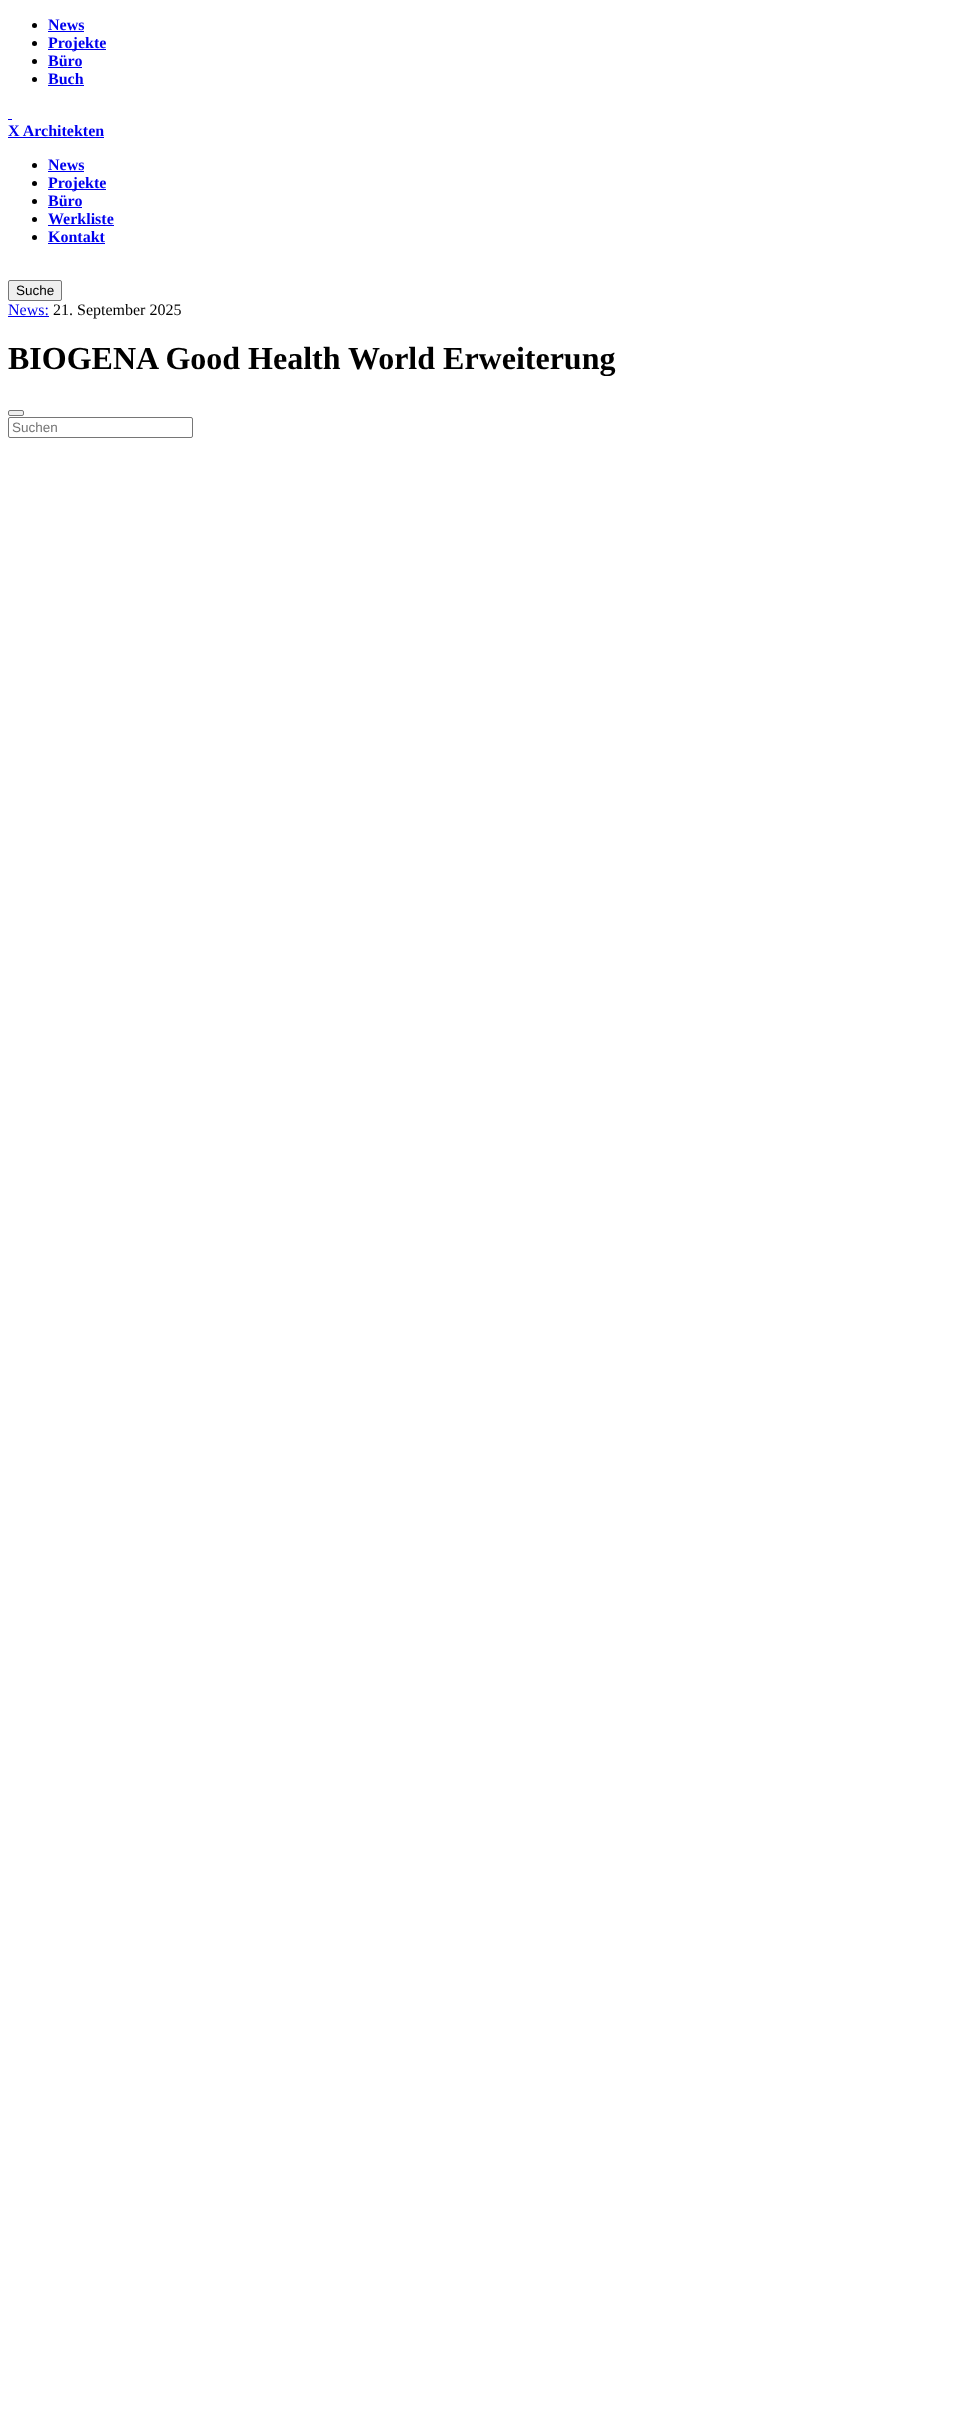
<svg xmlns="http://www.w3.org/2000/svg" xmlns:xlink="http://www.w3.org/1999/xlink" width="979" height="2436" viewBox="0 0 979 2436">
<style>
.cls-1{font:bold 16px Liberation Serif;fill:#0000ee}
.cls-2{font:13.5px Liberation Sans;fill:#000000}
.cls-3{font:16px Liberation Serif;fill:#0000ee}
.cls-4{font:16px Liberation Serif;fill:#000000}
.cls-5{font:bold 32px Liberation Serif;fill:#000000}
.cls-6{font:13.5px Liberation Sans;fill:#757575}
</style>
<rect width="100%" height="100%" fill="#ffffff"/>
<circle fill="#000000" cx="34.5" cy="25.5" r="2.5"/>
<rect fill="#0000ee" x="48" y="31" width="36" height="1"/>
<circle fill="#000000" cx="34.5" cy="43.5" r="2.5"/>
<rect fill="#0000ee" x="48" y="49" width="58" height="1"/>
<circle fill="#000000" cx="34.5" cy="61.5" r="2.5"/>
<rect fill="#0000ee" x="48" y="67" width="34" height="1"/>
<circle fill="#000000" cx="34.5" cy="79.5" r="2.5"/>
<rect fill="#0000ee" x="48" y="85" width="36" height="1"/>
<rect fill="#0000ee" x="8" y="119" width="4" height="1"/>
<rect fill="#0000ee" x="8" y="137" width="96" height="1"/>
<circle fill="#000000" cx="34.5" cy="165.5" r="2.5"/>
<rect fill="#0000ee" x="48" y="171" width="36" height="1"/>
<circle fill="#000000" cx="34.5" cy="183.5" r="2.5"/>
<rect fill="#0000ee" x="48" y="189" width="58" height="1"/>
<circle fill="#000000" cx="34.5" cy="201.5" r="2.5"/>
<rect fill="#0000ee" x="48" y="207" width="34" height="1"/>
<circle fill="#000000" cx="34.5" cy="219.5" r="2.5"/>
<rect fill="#0000ee" x="48" y="225" width="66" height="1"/>
<circle fill="#000000" cx="34.5" cy="237.5" r="2.5"/>
<rect fill="#0000ee" x="48" y="243" width="57" height="1"/>
<rect fill="#efefef" stroke="#767676" x="8.5" y="280.5" width="53" height="20" rx="1.5"/>
<rect fill="#0000ee" x="8" y="316" width="41" height="1"/>
<rect fill="#efefef" stroke="#767676" x="8.5" y="410.5" width="15" height="5" rx="1.5"/>
<rect fill="none" stroke="#767676" x="8.5" y="417.5" width="184" height="20" rx="1.5"/>
<text class="cls-1"><tspan x="48" y="30">News</tspan><tspan x="48" y="48">Projekte</tspan><tspan x="48" y="66">Büro</tspan><tspan x="48" y="84">Buch</tspan></text>
<text class="cls-1" x="8" y="136">X Architekten</text>
<text class="cls-1"><tspan x="48" y="170">News</tspan><tspan x="48" y="188">Projekte</tspan><tspan x="48" y="206">Büro</tspan><tspan x="48" y="224">Werkliste</tspan><tspan x="48" y="242">Kontakt</tspan></text>
<text class="cls-2" x="16" y="295">Suche</text>
<text class="cls-3" x="8" y="315">News:</text>
<text class="cls-4" x="53" y="315">21. September 2025</text>
<text class="cls-5" x="8" y="369">BIOGENA Good Health World Erweiterung</text>
<text class="cls-6" x="12" y="432">Suchen</text>
</svg>
